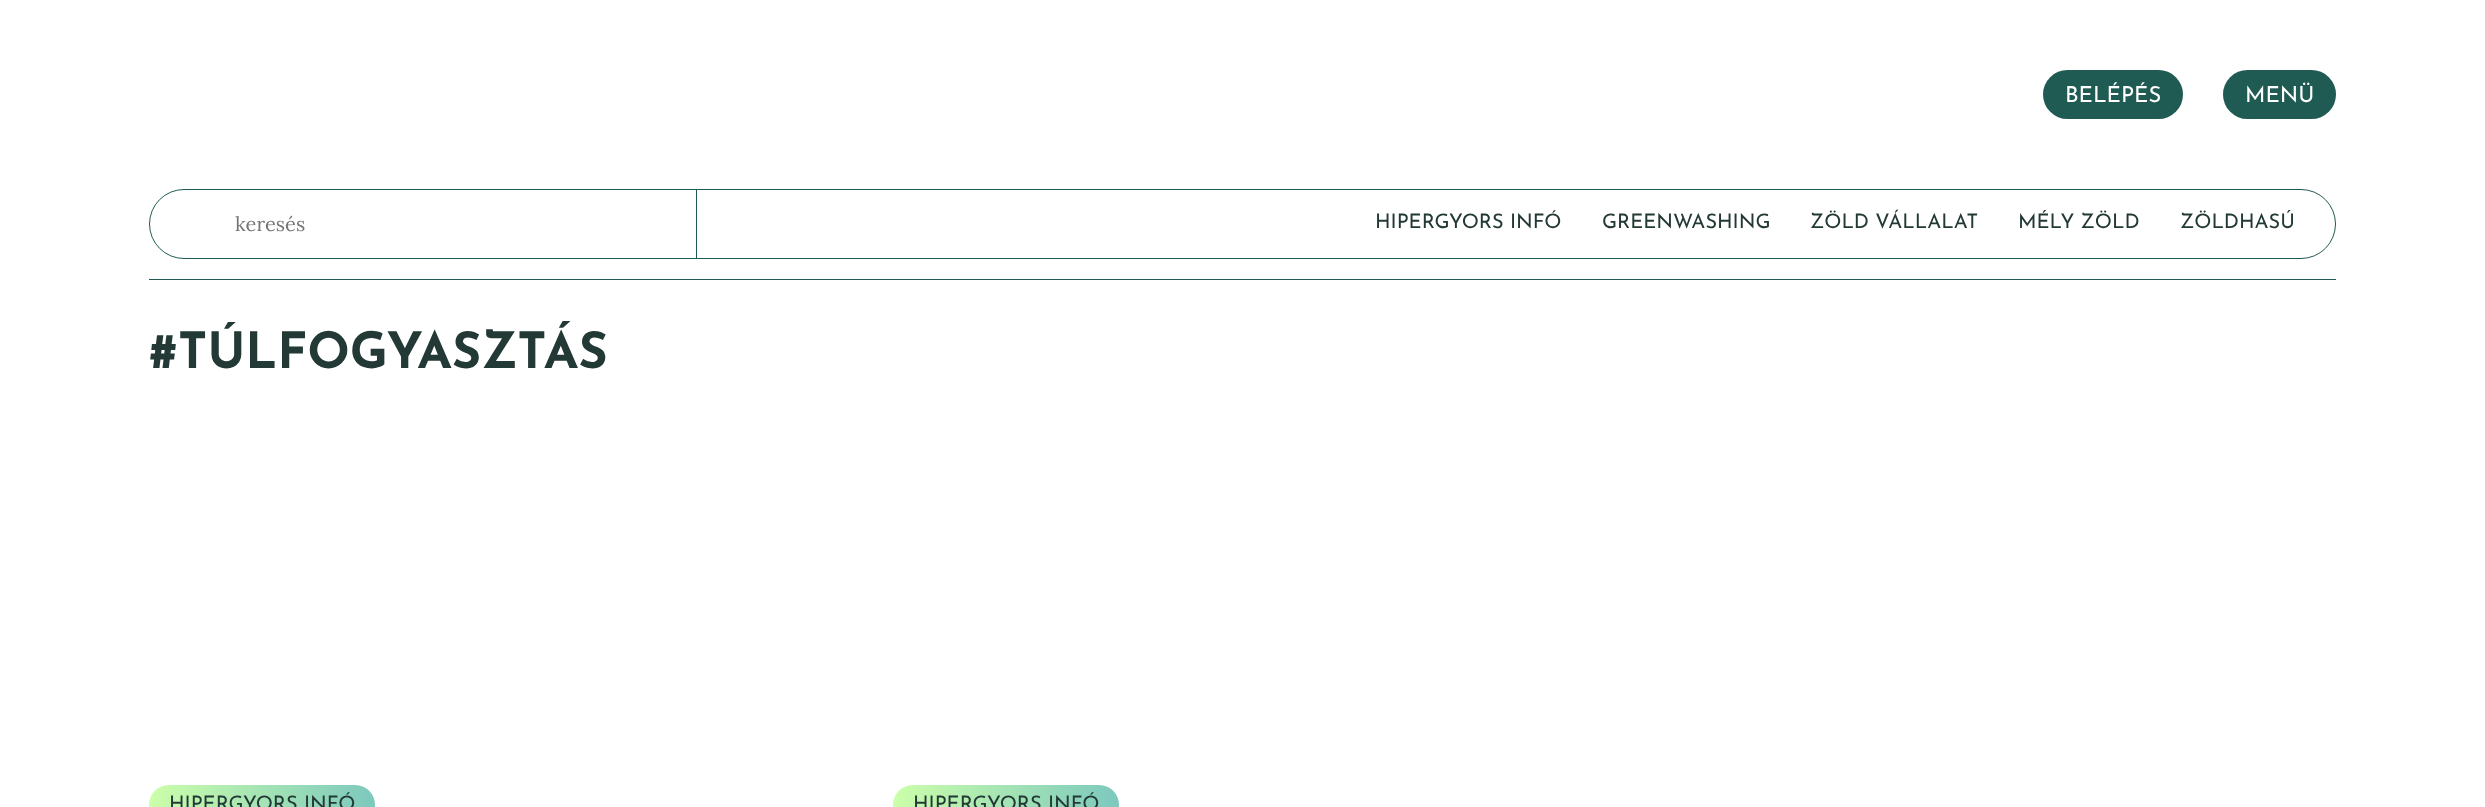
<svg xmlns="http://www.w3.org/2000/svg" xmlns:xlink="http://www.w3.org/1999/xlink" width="2485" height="807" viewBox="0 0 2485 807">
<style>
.cls-1{font:22px Josefin Sans;fill:#ffffff}
.cls-2{font:20px Lora;fill:#757575}
.cls-3{font:20px Josefin Sans;fill:#233935}
.cls-4{font:bold 50px Josefin Sans;fill:#233935}
</style>
<defs>
<linearGradient id="g1" gradientUnits="userSpaceOnUse" x1="149" y1="805" x2="375" y2="805"><stop offset="0" stop-color="#ccffaa"/><stop offset="1" stop-color="#7cc8be"/></linearGradient>
<linearGradient id="g2" gradientUnits="userSpaceOnUse" x1="893" y1="805" x2="1119" y2="805"><stop offset="0" stop-color="#ccffaa"/><stop offset="1" stop-color="#7cc8be"/></linearGradient>
</defs>
<rect width="100%" height="100%" fill="#ffffff"/>
<rect fill="#1f5b53" x="2043" y="70" width="140" height="49" rx="24.5"/>
<rect fill="#1f5b53" x="2223" y="70" width="113" height="49" rx="24.5"/>
<rect fill="none" stroke="#1f5b53" x="149.5" y="189.5" width="2186" height="69" rx="34.5"/>
<rect fill="#1f5b53" x="696" y="190" width="1" height="68"/>
<rect fill="#1f5b53" x="149" y="279" width="2187" height="1"/>
<rect fill="url(#g1)" x="149" y="785" width="226" height="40" rx="20"/>
<rect fill="url(#g2)" x="893" y="785" width="226" height="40" rx="20"/>
<text class="cls-1" x="2065" y="102">BELÉPÉS</text>
<text class="cls-1" x="2245" y="102">MENÜ</text>
<text class="cls-2" x="235" y="231">keresés</text>
<text class="cls-3" x="1375" y="228">HIPERGYORS INFÓ</text>
<text class="cls-3" x="1602" y="228">GREENWASHING</text>
<text class="cls-3" x="1810" y="228">ZÖLD VÁLLALAT</text>
<text class="cls-3" x="2018" y="228">MÉLY ZÖLD</text>
<text class="cls-3" x="2180" y="228">ZÖLDHASÚ</text>
<text class="cls-4" x="149" y="368">#TÚLFOGYASZTÁS</text>
<text class="cls-3" x="169" y="810">HIPERGYORS INFÓ</text>
<text class="cls-3" x="913" y="810">HIPERGYORS INFÓ</text>
</svg>
